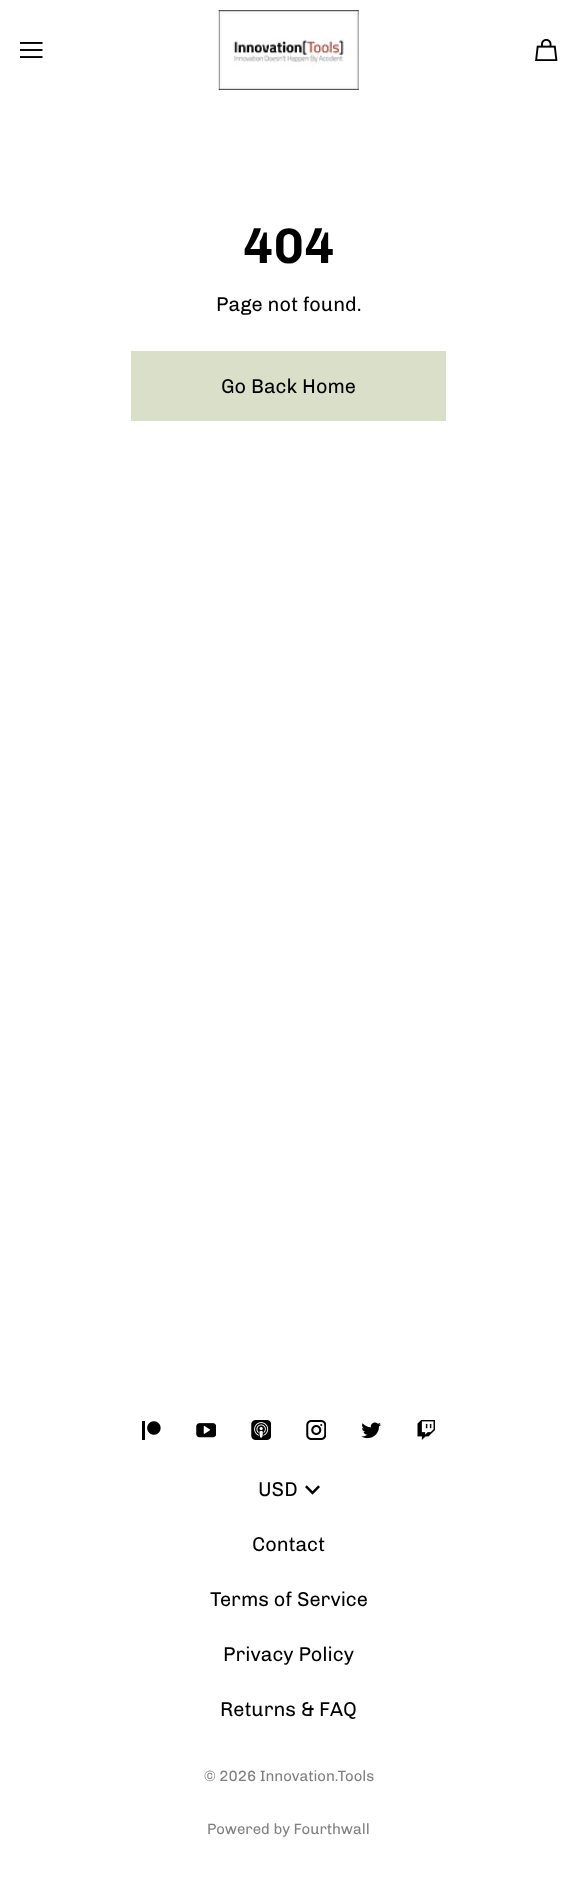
<svg xmlns="http://www.w3.org/2000/svg" xmlns:xlink="http://www.w3.org/1999/xlink" width="577" height="1882" viewBox="0 0 577 1882">
<style>
.cls-1{font:50px Chivo;fill:#000000}
.cls-2{font:20px 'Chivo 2';fill:#000000}
.cls-3{font:15px 'Chivo 2';fill:#808080}
</style>
<rect width="100%" height="100%" fill="#ffffff"/>
<image xlink:href="image0.png" x="20" y="42" width="23" height="16"/>
<image xlink:href="image1.png" x="218" y="10" width="141" height="80"/>
<image xlink:href="image2.png" x="535" y="39" width="23" height="22"/>
<rect fill="#d9dfc9" x="131" y="351" width="315" height="70"/>
<image xlink:href="image3.png" x="142" y="1421" width="19" height="19"/>
<image xlink:href="image4.png" x="196" y="1423" width="20" height="15"/>
<image xlink:href="image5.png" x="251" y="1420" width="20" height="20"/>
<image xlink:href="image6.png" x="306" y="1420" width="20" height="20"/>
<image xlink:href="image7.png" x="361" y="1422" width="20" height="17"/>
<image xlink:href="image8.png" x="417" y="1420" width="18" height="20"/>
<image xlink:href="image9.png" x="305" y="1485" width="15" height="10"/>
<text class="cls-1" x="243" y="263">404</text>
<text class="cls-2" x="216" y="311">Page not found.</text>
<text class="cls-2" x="221" y="393">Go Back Home</text>
<text class="cls-2" x="258" y="1496">USD</text>
<text class="cls-2" x="252" y="1551">Contact</text>
<text class="cls-2" x="210" y="1606">Terms of Service</text>
<text class="cls-2" x="223" y="1661">Privacy Policy</text>
<text class="cls-2" x="220" y="1716">Returns &amp; FAQ</text>
<text class="cls-3" x="204" y="1781">© 2026 Innovation.Tools</text>
<text class="cls-3" x="207" y="1834">Powered by Fourthwall</text>
</svg>
